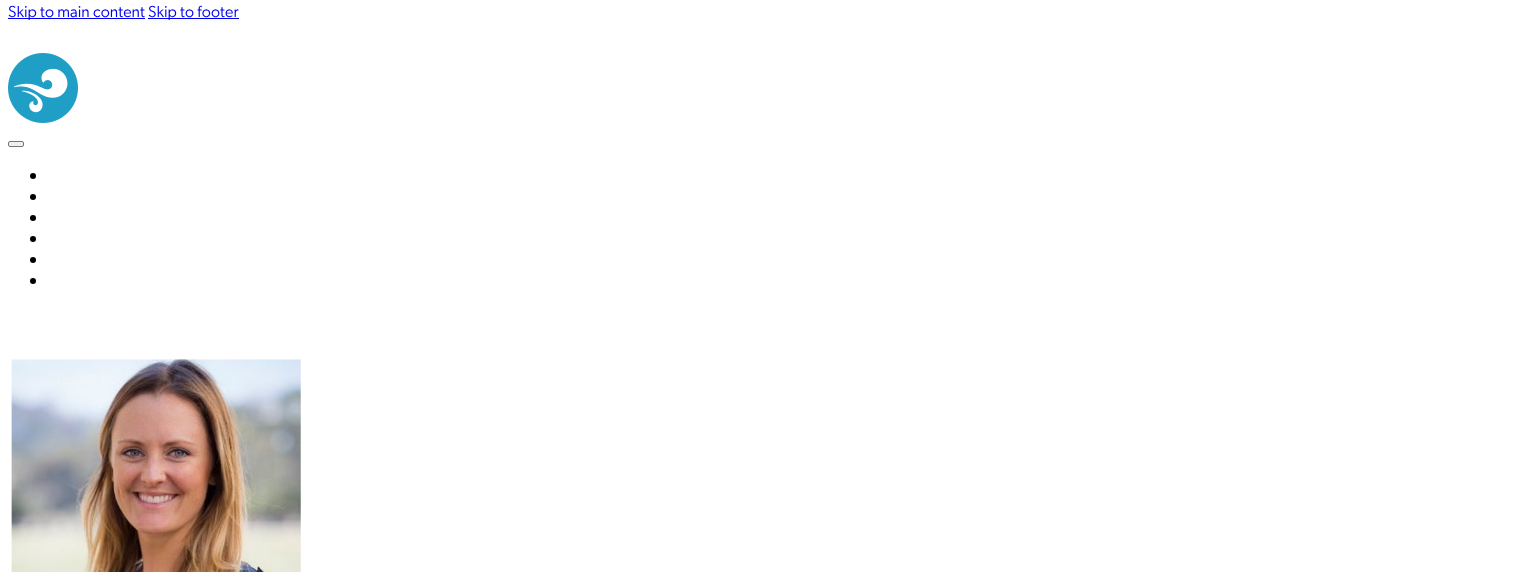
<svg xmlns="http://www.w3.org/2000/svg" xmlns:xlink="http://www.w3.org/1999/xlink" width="1526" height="572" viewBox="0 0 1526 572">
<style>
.cls-1{font:16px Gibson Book;fill:#0000ee}
</style>
<rect width="100%" height="100%" fill="#ffffff"/>
<rect fill="#0000ee" x="8" y="18" width="137" height="1"/>
<rect fill="#0000ee" x="148" y="18" width="91" height="1"/>
<image xlink:href="image0.png" x="8" y="53" width="70" height="70"/>
<rect fill="#efefef" stroke="#767676" x="8.5" y="141.5" width="15" height="5" rx="1.5"/>
<circle fill="#000000" cx="33" cy="176" r="3"/>
<circle fill="#000000" cx="33" cy="197" r="3"/>
<circle fill="#000000" cx="33" cy="218" r="3"/>
<circle fill="#000000" cx="33" cy="239" r="3"/>
<circle fill="#000000" cx="33" cy="260" r="3"/>
<circle fill="#000000" cx="33" cy="281" r="3"/>
<image xlink:href="image1.png" x="11" y="359" width="290" height="213"/>
<text class="cls-1" x="8" y="17">Skip to main content</text>
<text class="cls-1" x="148" y="17">Skip to footer</text>
</svg>
